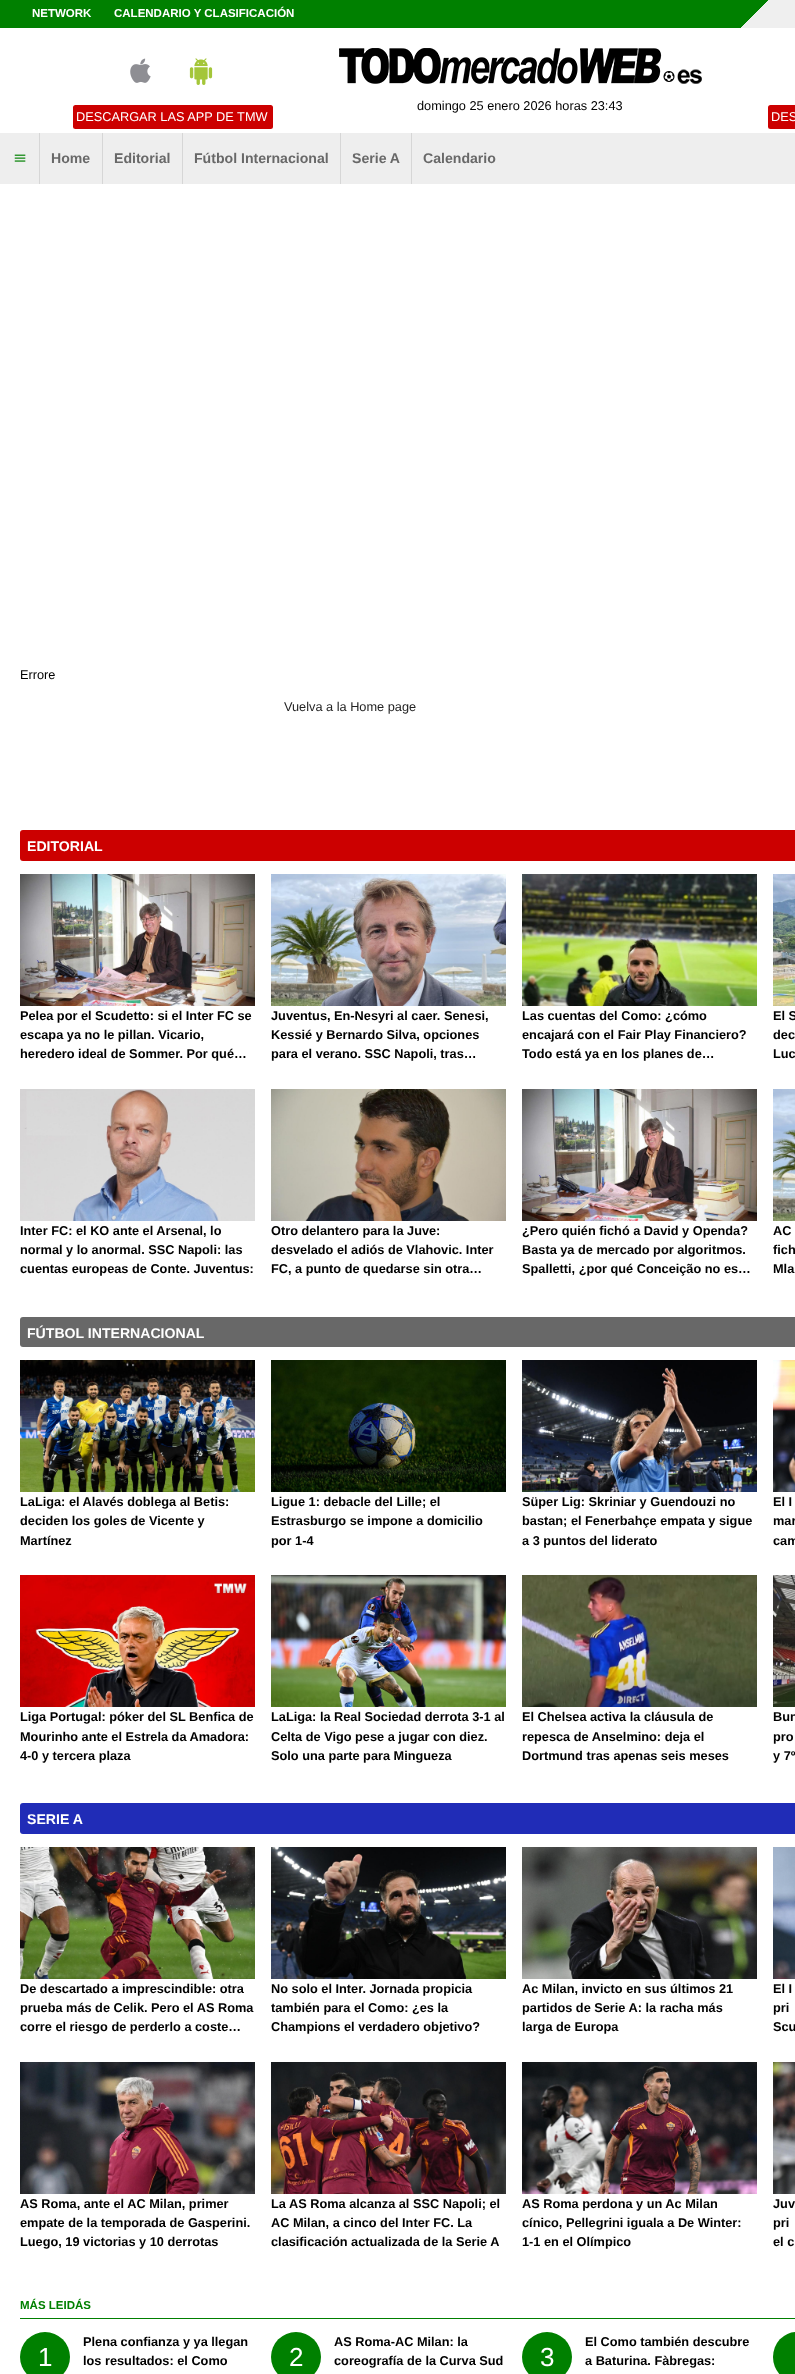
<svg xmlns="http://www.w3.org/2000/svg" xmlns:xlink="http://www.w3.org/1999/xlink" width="795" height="2374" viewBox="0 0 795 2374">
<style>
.cls-1{font:bold 11.5px Liberation Sans;fill:#ffffff}
.cls-2{font:12.75px Liberation Sans;fill:#000000}
.cls-3{font:12.75px Liberation Sans;fill:#ffffff}
.cls-4{font:bold 14.1px Liberation Sans;fill:#686868}
.cls-5{font:12.75px Liberation Sans;fill:#222222}
.cls-6{font:bold 14.1px Liberation Sans;fill:#ffffff}
.cls-7{font:bold 12.75px Liberation Sans;fill:#000000}
.cls-8{font:bold 11.5px Liberation Sans;fill:#008000}
.cls-9{font:26px Liberation Sans;fill:#ffffff}
</style>
<defs>
<linearGradient id="g1" gradientUnits="userSpaceOnUse" x1="253" y1="-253" x2="787" y2="281"><stop offset="0.72" stop-color="#008000"/><stop offset="0.72" stop-color="#efefef"/><stop offset="1" stop-color="#efefef"/></linearGradient>
</defs>
<rect width="100%" height="100%" fill="#ffffff"/>
<rect fill="url(#g1)" x="0" y="0" width="795" height="28"/>
<image xlink:href="image0.png" x="339" y="48" width="363" height="36"/>
<image xlink:href="image1.png" x="130" y="58" width="21" height="25"/>
<image xlink:href="image2.png" x="189" y="58" width="24" height="27"/>
<rect fill="#cc0000" x="73" y="105" width="200" height="24" rx="2.5"/>
<rect fill="#cc0000" x="768" y="105" width="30" height="24" rx="2.5"/>
<rect fill="#eeeeee" x="0" y="133" width="795" height="51"/>
<image xlink:href="image3.png" x="14" y="154" width="12" height="8"/>
<rect fill="#d6d6d6" x="39" y="133" width="1" height="51"/>
<rect fill="#d6d6d6" x="102" y="133" width="1" height="51"/>
<rect fill="#d6d6d6" x="182" y="133" width="1" height="51"/>
<rect fill="#d6d6d6" x="340" y="133" width="1" height="51"/>
<rect fill="#d6d6d6" x="411" y="133" width="1" height="51"/>
<rect fill="#cc0000" x="20" y="830" width="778" height="31" rx="3"/>
<image xlink:href="image4.png" x="20" y="874" width="235" height="132"/>
<image xlink:href="image5.png" x="271" y="874" width="235" height="132"/>
<image xlink:href="image6.png" x="522" y="874" width="235" height="132"/>
<image xlink:href="image7.png" x="773" y="874" width="22" height="132"/>
<image xlink:href="image8.png" x="20" y="1089" width="235" height="132"/>
<image xlink:href="image9.png" x="271" y="1089" width="235" height="132"/>
<image xlink:href="image10.png" x="522" y="1089" width="235" height="132"/>
<image xlink:href="image11.png" x="773" y="1089" width="22" height="132"/>
<rect fill="#686868" x="20" y="1317" width="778" height="30" rx="3"/>
<image xlink:href="image12.png" x="20" y="1360" width="235" height="132"/>
<image xlink:href="image13.png" x="271" y="1360" width="235" height="132"/>
<image xlink:href="image14.png" x="522" y="1360" width="235" height="132"/>
<image xlink:href="image15.png" x="773" y="1360" width="22" height="132"/>
<image xlink:href="image16.png" x="20" y="1575" width="235" height="132"/>
<image xlink:href="image17.png" x="271" y="1575" width="235" height="132"/>
<image xlink:href="image18.png" x="522" y="1575" width="235" height="132"/>
<image xlink:href="image19.png" x="773" y="1575" width="22" height="132"/>
<rect fill="#202cb7" x="20" y="1803" width="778" height="31" rx="3"/>
<image xlink:href="image20.png" x="20" y="1847" width="235" height="132"/>
<image xlink:href="image21.png" x="271" y="1847" width="235" height="132"/>
<image xlink:href="image22.png" x="522" y="1847" width="235" height="132"/>
<image xlink:href="image23.png" x="773" y="1847" width="22" height="132"/>
<image xlink:href="image24.png" x="20" y="2062" width="235" height="132"/>
<image xlink:href="image25.png" x="271" y="2062" width="235" height="132"/>
<image xlink:href="image26.png" x="522" y="2062" width="235" height="132"/>
<image xlink:href="image27.png" x="773" y="2062" width="22" height="132"/>
<rect fill="#008000" x="20" y="2318" width="775" height="1"/>
<circle fill="#008000" cx="45" cy="2357" r="25"/>
<circle fill="#008000" cx="296" cy="2357" r="25"/>
<circle fill="#008000" cx="547" cy="2357" r="25"/>
<rect fill="#008000" x="773" y="2332" width="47" height="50" rx="25"/>
<text class="cls-1" x="32" y="17">NETWORK</text>
<text class="cls-1" x="114" y="17">CALENDARIO Y CLASIFICACIÓN</text>
<text class="cls-2" x="417" y="110">domingo 25 enero 2026 horas 23:43</text>
<text class="cls-3" x="76" y="121">DESCARGAR LAS APP DE TMW</text>
<text class="cls-3" x="771" y="121">DES</text>
<text class="cls-4" x="51" y="163">Home</text>
<text class="cls-4" x="114" y="163">Editorial</text>
<text class="cls-4" x="194" y="163">Fútbol Internacional</text>
<text class="cls-4" x="352" y="163">Serie A</text>
<text class="cls-4" x="423" y="163">Calendario</text>
<text class="cls-2" x="20" y="679">Errore</text>
<text class="cls-5" x="284" y="711">Vuelva a la Home page</text>
<text class="cls-6" x="27" y="851">EDITORIAL</text>
<text class="cls-7"><tspan x="20" y="1020">Pelea por el Scudetto: si el Inter FC se</tspan><tspan x="20" y="1039">escapa ya no le pillan. Vicario,</tspan><tspan x="20" y="1058">heredero ideal de Sommer. Por qué…</tspan></text>
<text class="cls-7"><tspan x="271" y="1020">Juventus, En-Nesyri al caer. Senesi,</tspan><tspan x="271" y="1039">Kessié y Bernardo Silva, opciones</tspan><tspan x="271" y="1058">para el verano. SSC Napoli, tras…</tspan></text>
<text class="cls-7"><tspan x="522" y="1020">Las cuentas del Como: ¿cómo</tspan><tspan x="522" y="1039">encajará con el Fair Play Financiero?</tspan><tspan x="522" y="1058">Todo está ya en los planes de…</tspan></text>
<text class="cls-7"><tspan x="773" y="1020">El S</tspan><tspan x="773" y="1039">dec</tspan><tspan x="773" y="1058">Luc</tspan></text>
<text class="cls-7"><tspan x="20" y="1235">Inter FC: el KO ante el Arsenal, lo</tspan><tspan x="20" y="1254">normal y lo anormal. SSC Napoli: las</tspan><tspan x="20" y="1273">cuentas europeas de Conte. Juventus:</tspan></text>
<text class="cls-7"><tspan x="271" y="1235">Otro delantero para la Juve:</tspan><tspan x="271" y="1254">desvelado el adiós de Vlahovic. Inter</tspan><tspan x="271" y="1273">FC, a punto de quedarse sin otra…</tspan></text>
<text class="cls-7"><tspan x="522" y="1235">¿Pero quién fichó a David y Openda?</tspan><tspan x="522" y="1254">Basta ya de mercado por algoritmos.</tspan><tspan x="522" y="1273">Spalletti, ¿por qué Conceição no es…</tspan></text>
<text class="cls-7"><tspan x="773" y="1235">AC</tspan><tspan x="773" y="1254">fich</tspan><tspan x="773" y="1273">Mla</tspan></text>
<text class="cls-6" x="27" y="1338">FÚTBOL INTERNACIONAL</text>
<text class="cls-7"><tspan x="20" y="1506">LaLiga: el Alavés doblega al Betis:</tspan><tspan x="20" y="1525">deciden los goles de Vicente y</tspan><tspan x="20" y="1545">Martínez</tspan></text>
<text class="cls-7"><tspan x="271" y="1506">Ligue 1: debacle del Lille; el</tspan><tspan x="271" y="1525">Estrasburgo se impone a domicilio</tspan><tspan x="271" y="1545">por 1-4</tspan></text>
<text class="cls-7"><tspan x="522" y="1506">Süper Lig: Skriniar y Guendouzi no</tspan><tspan x="522" y="1525">bastan; el Fenerbahçe empata y sigue</tspan><tspan x="522" y="1545">a 3 puntos del liderato</tspan></text>
<text class="cls-7"><tspan x="773" y="1506">El I</tspan><tspan x="773" y="1525">mar</tspan><tspan x="773" y="1545">cam</tspan></text>
<text class="cls-7"><tspan x="20" y="1721">Liga Portugal: póker del SL Benfica de</tspan><tspan x="20" y="1741">Mourinho ante el Estrela da Amadora:</tspan><tspan x="20" y="1760">4-0 y tercera plaza</tspan></text>
<text class="cls-7"><tspan x="271" y="1721">LaLiga: la Real Sociedad derrota 3-1 al</tspan><tspan x="271" y="1741">Celta de Vigo pese a jugar con diez.</tspan><tspan x="271" y="1760">Solo una parte para Mingueza</tspan></text>
<text class="cls-7"><tspan x="522" y="1721">El Chelsea activa la cláusula de</tspan><tspan x="522" y="1741">repesca de Anselmino: deja el</tspan><tspan x="522" y="1760">Dortmund tras apenas seis meses</tspan></text>
<text class="cls-7"><tspan x="773" y="1721">Bun</tspan><tspan x="773" y="1741">pro</tspan><tspan x="773" y="1760">y 7º</tspan></text>
<text class="cls-6" x="27" y="1824">SERIE A</text>
<text class="cls-7"><tspan x="20" y="1993">De descartado a imprescindible: otra</tspan><tspan x="20" y="2012">prueba más de Celik. Pero el AS Roma</tspan><tspan x="20" y="2031">corre el riesgo de perderlo a coste…</tspan></text>
<text class="cls-7"><tspan x="271" y="1993">No solo el Inter. Jornada propicia</tspan><tspan x="271" y="2012">también para el Como: ¿es la</tspan><tspan x="271" y="2031">Champions el verdadero objetivo?</tspan></text>
<text class="cls-7"><tspan x="522" y="1993">Ac Milan, invicto en sus últimos 21</tspan><tspan x="522" y="2012">partidos de Serie A: la racha más</tspan><tspan x="522" y="2031">larga de Europa</tspan></text>
<text class="cls-7"><tspan x="773" y="1993">El I</tspan><tspan x="773" y="2012">pri</tspan><tspan x="773" y="2031">Scu</tspan></text>
<text class="cls-7"><tspan x="20" y="2208">AS Roma, ante el AC Milan, primer</tspan><tspan x="20" y="2227">empate de la temporada de Gasperini.</tspan><tspan x="20" y="2246">Luego, 19 victorias y 10 derrotas</tspan></text>
<text class="cls-7"><tspan x="271" y="2208">La AS Roma alcanza al SSC Napoli; el</tspan><tspan x="271" y="2227">AC Milan, a cinco del Inter FC. La</tspan><tspan x="271" y="2246">clasificación actualizada de la Serie A</tspan></text>
<text class="cls-7"><tspan x="522" y="2208">AS Roma perdona y un Ac Milan</tspan><tspan x="522" y="2227">cínico, Pellegrini iguala a De Winter:</tspan><tspan x="522" y="2246">1-1 en el Olímpico</tspan></text>
<text class="cls-7"><tspan x="773" y="2208">Juv</tspan><tspan x="773" y="2227">pri</tspan><tspan x="773" y="2246">el c</tspan></text>
<text class="cls-8" x="20" y="2309">MÁS LEIDÁS</text>
<text class="cls-9" x="38" y="2366">1</text>
<text class="cls-7"><tspan x="83" y="2346">Plena confianza y ya llegan</tspan><tspan x="83" y="2365">los resultados: el Como</tspan></text>
<text class="cls-9" x="289" y="2366">2</text>
<text class="cls-7"><tspan x="334" y="2346">AS Roma-AC Milan: la</tspan><tspan x="334" y="2365">coreografía de la Curva Sud</tspan></text>
<text class="cls-9" x="540" y="2366">3</text>
<text class="cls-7"><tspan x="585" y="2346">El Como también descubre</tspan><tspan x="585" y="2365">a Baturina. Fàbregas:</tspan></text>
</svg>
